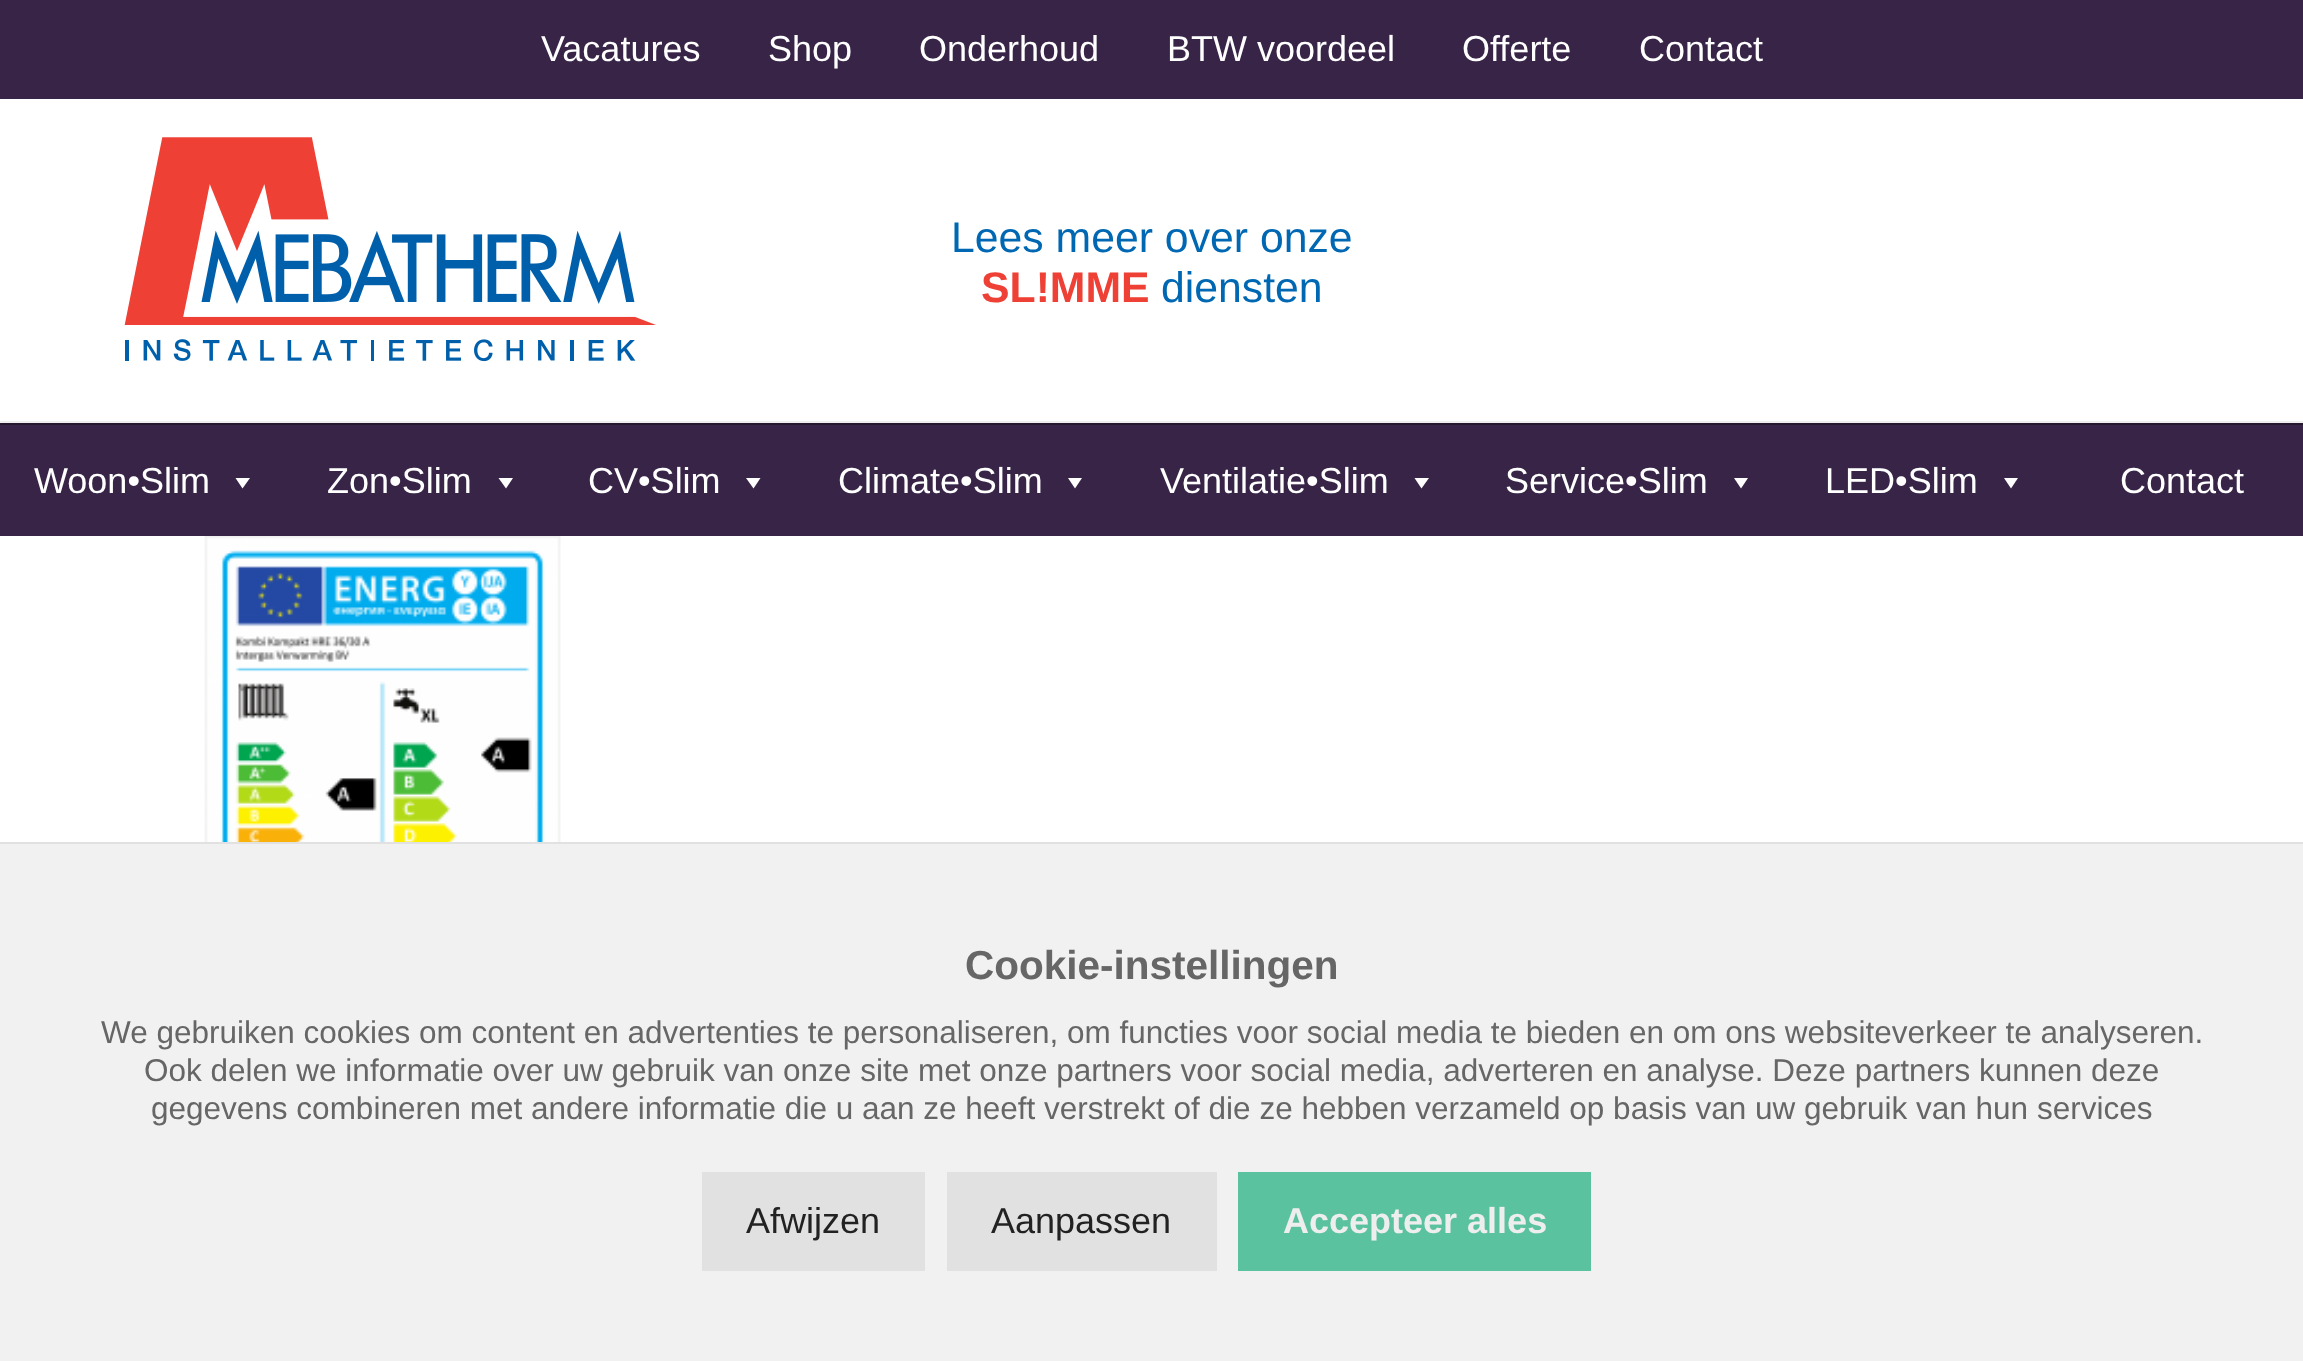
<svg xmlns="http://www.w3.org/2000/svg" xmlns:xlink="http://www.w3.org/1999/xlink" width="2303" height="1361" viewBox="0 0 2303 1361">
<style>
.cls-1{font:36px Liberation Sans;fill:#ffffff}
.cls-2{font:42.75px Liberation Sans;fill:#0068b3}
.cls-3{font:bold 42.75px Liberation Sans;fill:#ef4035}
.cls-4{font:bold 40.5px Liberation Sans;fill:#666666}
.cls-5{font:31.5px Liberation Sans;fill:#666666}
.cls-6{font:36px Liberation Sans;fill:#222222}
.cls-7{font:bold 36px Liberation Sans;fill:#eeeeee}
</style>
<rect width="100%" height="100%" fill="#ffffff"/>
<rect fill="#372447" x="0" y="0" width="2303" height="99"/>
<image xlink:href="image0.png" x="124" y="137" width="532" height="225"/>
<rect fill="#efefef" x="0" y="421" width="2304" height="2" rx="1"/>
<rect fill="#372447" x="0" y="425" width="2303" height="111"/>
<rect fill="#26182f" x="0" y="423" width="2303" height="2"/>
<path fill="#ffffff" d="M250 478L242.5 488.5L235.5 478Z"/>
<path fill="#ffffff" d="M513 478L506 488.5L498.5 478Z"/>
<path fill="#ffffff" d="M760.5 478L753.5 488.5L746 478Z"/>
<path fill="#ffffff" d="M1082 478L1075 488.5L1068 478Z"/>
<path fill="#ffffff" d="M1429 478L1421.5 488.5L1414.5 478Z"/>
<path fill="#ffffff" d="M1748 478L1741 488.5L1734 478Z"/>
<path fill="#ffffff" d="M2018 478L2011 488.5L2004 478Z"/>
<image xlink:href="image1.png" x="204" y="536" width="357" height="306"/>
<rect fill="#f1f1f1" x="0" y="844" width="2303" height="517"/>
<rect fill="#e1e1e1" x="0" y="842" width="2303" height="2"/>
<rect fill="#e1e1e1" x="702" y="1172" width="223" height="99"/>
<rect fill="#e1e1e1" x="947" y="1172" width="270" height="99"/>
<rect fill="#5bc29f" x="1238" y="1172" width="353" height="99"/>
<text class="cls-1" x="541" y="61">Vacatures</text>
<text class="cls-1" x="768" y="61">Shop</text>
<text class="cls-1" x="919" y="61">Onderhoud</text>
<text class="cls-1" x="1167" y="61">BTW voordeel</text>
<text class="cls-1" x="1462" y="61">Offerte</text>
<text class="cls-1" x="1639" y="61">Contact</text>
<text class="cls-2" x="951" y="252">Lees meer over onze</text>
<text class="cls-3" x="981" y="302">SL!MME</text>
<text class="cls-2" x="1161" y="302">diensten</text>
<text class="cls-1" x="34" y="493">Woon•Slim</text>
<text class="cls-1" x="327" y="493">Zon•Slim</text>
<text class="cls-1" x="588" y="493">CV•Slim</text>
<text class="cls-1" x="838" y="493">Climate•Slim</text>
<text class="cls-1" x="1160" y="493">Ventilatie•Slim</text>
<text class="cls-1" x="1505" y="493">Service•Slim</text>
<text class="cls-1" x="1825" y="493">LED•Slim</text>
<text class="cls-1" x="2120" y="493">Contact</text>
<text class="cls-4" x="965" y="979">Cookie-instellingen</text>
<text class="cls-5" x="101" y="1043">We gebruiken cookies om content en advertenties te personaliseren, om functies voor social media te bieden en om ons websiteverkeer te analyseren.</text>
<text class="cls-5" x="144" y="1081">Ook delen we informatie over uw gebruik van onze site met onze partners voor social media, adverteren en analyse. Deze partners kunnen deze</text>
<text class="cls-5" x="151" y="1119">gegevens combineren met andere informatie die u aan ze heeft verstrekt of die ze hebben verzameld op basis van uw gebruik van hun services</text>
<text class="cls-6" x="746" y="1233">Afwijzen</text>
<text class="cls-6" x="991" y="1233">Aanpassen</text>
<text class="cls-7" x="1283" y="1233">Accepteer alles</text>
</svg>
